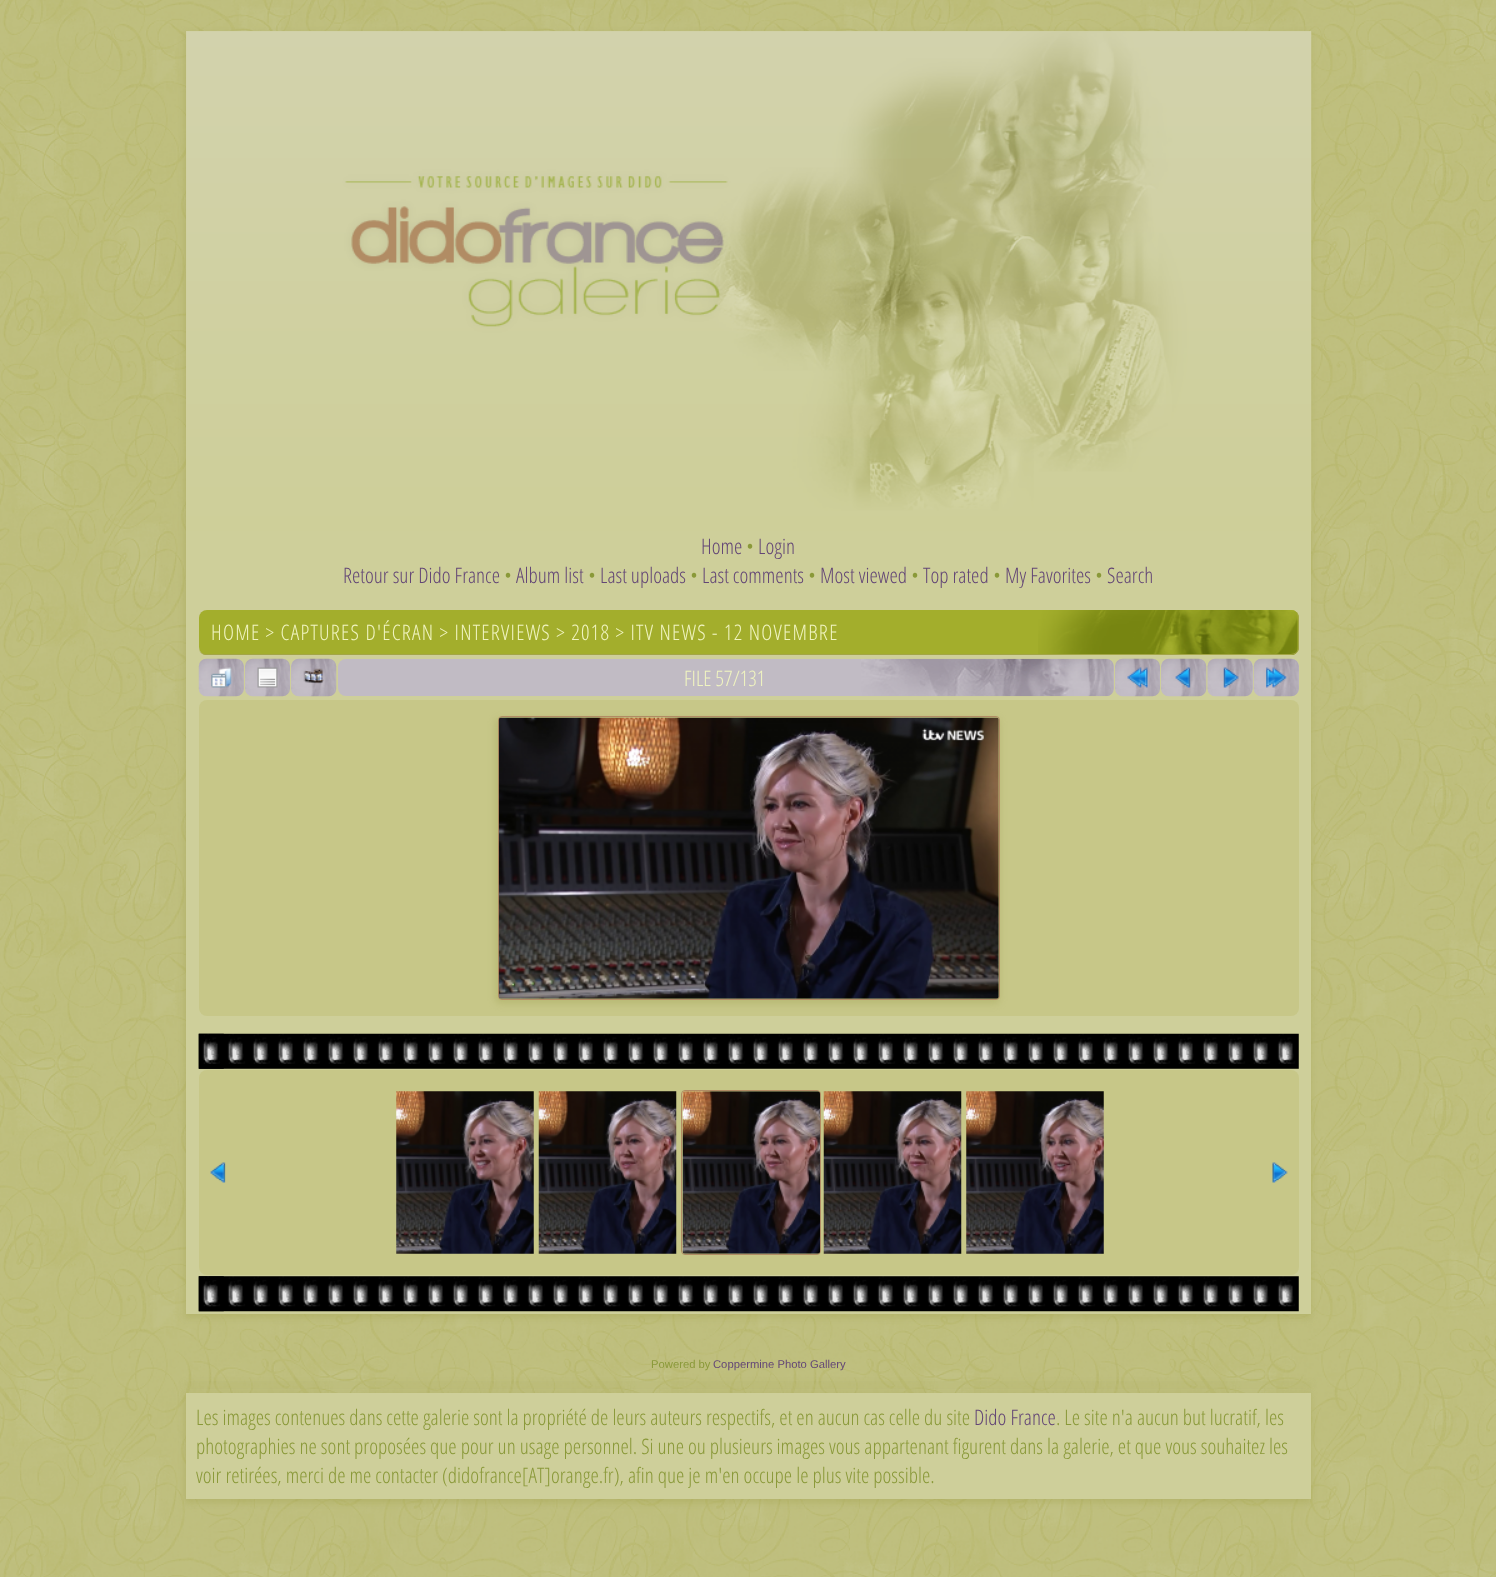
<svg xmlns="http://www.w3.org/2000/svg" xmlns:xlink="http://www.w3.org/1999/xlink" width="1496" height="1577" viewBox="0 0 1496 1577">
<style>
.cls-1{font:300 21.25px Open Sans Condensed;fill:#634676}
.cls-2{font:300 21.25px Open Sans Condensed;fill:#8a9939}
.cls-3{font:300 21.25px Open Sans Condensed;letter-spacing:1.25px;fill:#f0f4c0}
.cls-4{font:300 21.25px Open Sans Condensed;fill:#f0f4c0}
.cls-5{font:11.25px Liberation Sans;fill:#8a9939}
.cls-6{font:11.25px Liberation Sans;fill:#634676}
</style>
<rect width="100%" height="100%" fill="#ffffff"/>
<image xlink:href="image0.png" x="0" y="0" width="1496" height="1577"/>
<rect fill="#a0a045" fill-opacity="0.3" filter="blur(3px)" x="184" y="33" width="1127" height="1285"/>
<rect fill="#cecf9a" x="186" y="31" width="1125" height="1283"/>
<image xlink:href="image1.png" x="186" y="31" width="1126" height="500"/>
<rect fill="#a3ae2c" x="199" y="610" width="1100" height="45" rx="8"/>
<image xlink:href="image2.png" x="1038" y="610" width="260" height="45"/>
<path fill="#a3a547" fill-rule="evenodd" d="M206 610H1291C1295 610 1299 613 1299 618V648C1299 652 1295 655 1291 655H206C202 655 199 652 199 648V618C199 613 202 610 206 610ZM206 610H1291C1295 610 1298 613 1298 618V648C1298 651 1295 654 1291 654H206C202 654 199 651 199 648V618C199 613 202 610 206 610Z"/>
<rect fill="#c1bbc4" x="199" y="659" width="45" height="37" rx="8"/>
<image xlink:href="image3.png" x="198" y="658" width="46" height="39"/>
<image xlink:href="image4.png" x="211" y="667" width="21" height="21"/>
<image xlink:href="image5.png" x="245" y="658" width="45" height="39"/>
<image xlink:href="image6.png" x="257" y="667" width="21" height="21"/>
<rect fill="#c1bbc4" x="291" y="659" width="45" height="37" rx="8"/>
<image xlink:href="image7.png" x="291" y="658" width="46" height="39"/>
<image xlink:href="image8.png" x="303" y="668" width="21" height="16"/>
<rect fill="#c1bbc4" x="338" y="659" width="776" height="37" rx="8"/>
<image xlink:href="image9.png" x="861" y="658" width="253" height="39"/>
<image xlink:href="image10.png" x="1115" y="658" width="45" height="39"/>
<image xlink:href="image11.png" x="1127" y="667" width="21" height="21"/>
<rect fill="#c1bbc4" x="1161" y="659" width="45" height="37" rx="8"/>
<image xlink:href="image7.png" x="1161" y="658" width="46" height="39"/>
<image xlink:href="image12.png" x="1175" y="667" width="16" height="21"/>
<rect fill="#c1bbc4" x="1208" y="659" width="45" height="37" rx="8"/>
<image xlink:href="image13.png" x="1207" y="658" width="46" height="39"/>
<image xlink:href="image14.png" x="1223" y="667" width="16" height="21"/>
<rect fill="#c1bbc4" x="1254" y="659" width="45" height="37" rx="8"/>
<image xlink:href="image15.png" x="1253" y="658" width="46" height="39"/>
<image xlink:href="image16.png" x="1266" y="667" width="21" height="21"/>
<rect fill="#c7c788" x="199" y="700" width="1100" height="316" rx="8"/>
<rect fill="#b4b56e" fill-opacity="0.7" filter="blur(3px)" x="495" y="718" width="505" height="286" rx="5"/>
<rect fill="none" stroke="#b18c64" x="498.5" y="716.5" width="501" height="283" rx="3.5"/>
<image xlink:href="image17.png" x="498" y="717" width="501" height="282"/>
<rect fill="#c7c788" x="199" y="1034" width="1100" height="35"/>
<image xlink:href="image18.png" x="198" y="1033" width="1101" height="36"/>
<image xlink:href="image19.png" x="198" y="1033" width="26" height="36"/>
<rect fill="#c7c788" x="199" y="1070" width="1100" height="205" rx="8"/>
<image xlink:href="image20.png" x="210" y="1162" width="16" height="21"/>
<image xlink:href="image21.png" x="396" y="1091" width="138" height="163"/>
<image xlink:href="image22.png" x="538" y="1091" width="139" height="163"/>
<rect fill="none" stroke="#b18c64" x="681.5" y="1090.5" width="139" height="164" rx="3.5"/>
<image xlink:href="image23.png" x="682" y="1091" width="138" height="163"/>
<image xlink:href="image24.png" x="823" y="1091" width="139" height="163"/>
<image xlink:href="image25.png" x="966" y="1091" width="138" height="163"/>
<image xlink:href="image26.png" x="1272" y="1162" width="16" height="21"/>
<rect fill="#c7c788" x="199" y="1276" width="1100" height="35"/>
<image xlink:href="image27.png" x="198" y="1276" width="1101" height="36"/>
<image xlink:href="image28.png" x="198" y="1276" width="26" height="36"/>
<rect fill="#a0a045" fill-opacity="0.3" filter="blur(3px)" x="184" y="1394" width="1127" height="109"/>
<rect fill="#cecf9a" x="186" y="1393" width="1125" height="106"/>
<text class="cls-1" x="701" y="554">Home</text>
<text class="cls-2" x="746" y="554">•</text>
<text class="cls-1" x="758" y="554">Login</text>
<text class="cls-1" x="343" y="583">Retour sur Dido France</text>
<text class="cls-2" x="504" y="583">•</text>
<text class="cls-1" x="516" y="583">Album list</text>
<text class="cls-2" x="588" y="583">•</text>
<text class="cls-1" x="600" y="583">Last uploads</text>
<text class="cls-2" x="690" y="583">•</text>
<text class="cls-1" x="702" y="583">Last comments</text>
<text class="cls-2" x="808" y="583">•</text>
<text class="cls-1" x="820" y="583">Most viewed</text>
<text class="cls-2" x="911" y="583">•</text>
<text class="cls-1" x="923" y="583">Top rated</text>
<text class="cls-2" x="993" y="583">•</text>
<text class="cls-1" x="1005" y="583">My Favorites</text>
<text class="cls-2" x="1095" y="583">•</text>
<text class="cls-1" x="1107" y="583">Search</text>
<text class="cls-3" x="211" y="640">HOME &gt; CAPTURES D'ÉCRAN &gt; INTERVIEWS &gt; 2018 &gt; ITV NEWS - 12 NOVEMBRE</text>
<text class="cls-4" x="684" y="686">FILE 57/131</text>
<text class="cls-5" x="651" y="1368">Powered by</text>
<text class="cls-6" x="713" y="1368">Coppermine Photo Gallery</text>
<text class="cls-2" x="196" y="1425">Les images contenues dans cette galerie sont la propriété de leurs auteurs respectifs, et en aucun cas celle du site</text>
<text class="cls-1" x="974" y="1425">Dido France</text>
<text class="cls-2" x="1056" y="1425">. Le site n'a aucun but lucratif, les</text>
<text class="cls-2"><tspan x="196" y="1454">photographies ne sont proposées que pour un usage personnel. Si une ou plusieurs images vous appartenant figurent dans la galerie, et que vous souhaitez les</tspan><tspan x="196" y="1483">voir retirées, merci de me contacter (didofrance[AT]orange.fr), afin que je m'en occupe le plus vite possible.</tspan></text>
</svg>
